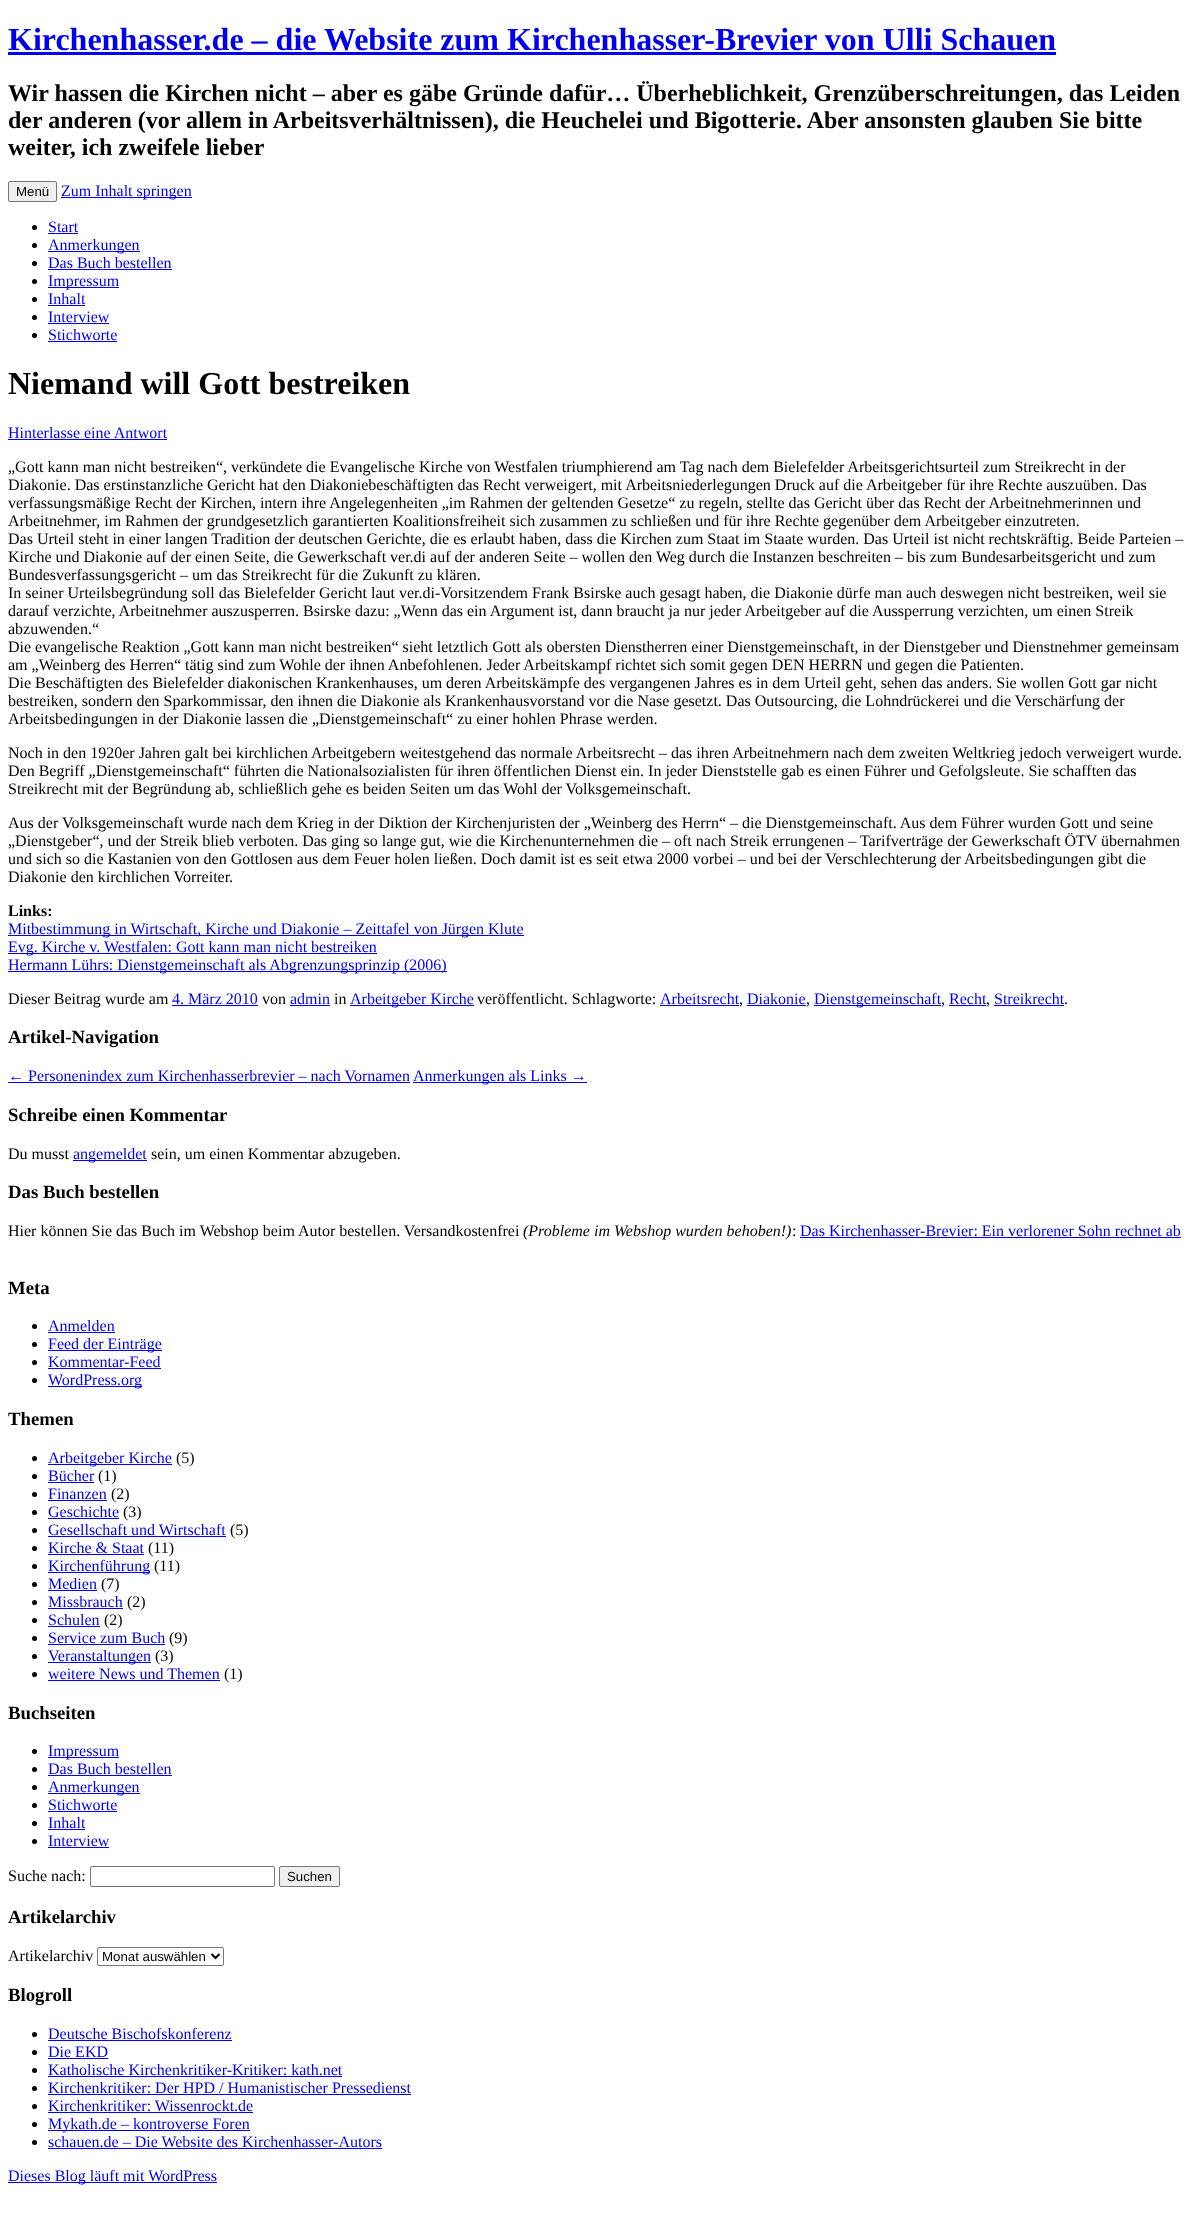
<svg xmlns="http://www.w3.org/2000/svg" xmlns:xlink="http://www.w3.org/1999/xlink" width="1200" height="2219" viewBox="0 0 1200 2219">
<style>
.cls-1{font:bold 32px Liberation Serif;fill:#0000ee}
.cls-2{font:bold 24px Liberation Serif;fill:#000000}
.cls-3{font:13.25px Liberation Sans;fill:#000000}
.cls-4{font:16px Liberation Serif;fill:#0000ee}
.cls-5{font:bold 32px Liberation Serif;fill:#000000}
.cls-6{font:16px Liberation Serif;fill:#000000}
.cls-7{font:bold 16px Liberation Serif;fill:#000000}
.cls-8{font:bold 18.75px Liberation Serif;fill:#000000}
.cls-9{font:italic 16px Liberation Serif;fill:#000000}
</style>
<rect width="100%" height="100%" fill="#ffffff"/>
<rect fill="#0000ee" x="8" y="52" width="1048" height="3"/>
<rect fill="#efefef" stroke="#767676" x="8.5" y="181.5" width="48" height="20" rx="1.5"/>
<rect fill="#0000ee" x="61" y="197" width="131" height="1"/>
<circle fill="#000000" cx="34.5" cy="227.5" r="2.5"/>
<rect fill="#0000ee" x="48" y="233" width="30" height="1"/>
<circle fill="#000000" cx="34.5" cy="245.5" r="2.5"/>
<rect fill="#0000ee" x="48" y="251" width="92" height="1"/>
<circle fill="#000000" cx="34.5" cy="263.5" r="2.5"/>
<rect fill="#0000ee" x="48" y="269" width="124" height="1"/>
<circle fill="#000000" cx="34.5" cy="281.5" r="2.5"/>
<rect fill="#0000ee" x="48" y="287" width="71" height="1"/>
<circle fill="#000000" cx="34.5" cy="299.5" r="2.5"/>
<rect fill="#0000ee" x="48" y="305" width="37" height="1"/>
<circle fill="#000000" cx="34.5" cy="317.5" r="2.5"/>
<rect fill="#0000ee" x="48" y="323" width="61" height="1"/>
<circle fill="#000000" cx="34.5" cy="335.5" r="2.5"/>
<rect fill="#0000ee" x="48" y="341" width="69" height="1"/>
<rect fill="#0000ee" x="8" y="439" width="159" height="1"/>
<rect fill="#0000ee" x="8" y="935" width="516" height="1"/>
<rect fill="#0000ee" x="8" y="953" width="369" height="1"/>
<rect fill="#0000ee" x="8" y="971" width="439" height="1"/>
<rect fill="#0000ee" x="172" y="1005" width="86" height="1"/>
<rect fill="#0000ee" x="290" y="1005" width="40" height="1"/>
<rect fill="#0000ee" x="350" y="1005" width="124" height="1"/>
<rect fill="#0000ee" x="660" y="1005" width="79" height="1"/>
<rect fill="#0000ee" x="747" y="1005" width="59" height="1"/>
<rect fill="#0000ee" x="814" y="1005" width="127" height="1"/>
<rect fill="#0000ee" x="949" y="1005" width="37" height="1"/>
<rect fill="#0000ee" x="994" y="1005" width="70" height="1"/>
<rect fill="#0000ee" x="8" y="1082" width="402" height="1"/>
<rect fill="#0000ee" x="413" y="1082" width="174" height="1"/>
<rect fill="#0000ee" x="73" y="1160" width="74" height="1"/>
<rect fill="#0000ee" x="800" y="1237" width="381" height="1"/>
<circle fill="#000000" cx="34.5" cy="1326.5" r="2.5"/>
<rect fill="#0000ee" x="48" y="1332" width="67" height="1"/>
<circle fill="#000000" cx="34.5" cy="1344.5" r="2.5"/>
<rect fill="#0000ee" x="48" y="1350" width="114" height="1"/>
<circle fill="#000000" cx="34.5" cy="1362.5" r="2.5"/>
<rect fill="#0000ee" x="48" y="1368" width="113" height="1"/>
<circle fill="#000000" cx="34.5" cy="1380.5" r="2.5"/>
<rect fill="#0000ee" x="48" y="1386" width="94" height="1"/>
<circle fill="#000000" cx="34.5" cy="1458.5" r="2.5"/>
<rect fill="#0000ee" x="48" y="1464" width="124" height="1"/>
<circle fill="#000000" cx="34.5" cy="1476.5" r="2.5"/>
<rect fill="#0000ee" x="48" y="1482" width="46" height="1"/>
<circle fill="#000000" cx="34.5" cy="1494.5" r="2.5"/>
<rect fill="#0000ee" x="48" y="1500" width="59" height="1"/>
<circle fill="#000000" cx="34.5" cy="1512.5" r="2.5"/>
<rect fill="#0000ee" x="48" y="1518" width="71" height="1"/>
<circle fill="#000000" cx="34.5" cy="1530.5" r="2.5"/>
<rect fill="#0000ee" x="48" y="1536" width="178" height="1"/>
<circle fill="#000000" cx="34.5" cy="1548.5" r="2.5"/>
<rect fill="#0000ee" x="48" y="1554" width="96" height="1"/>
<circle fill="#000000" cx="34.5" cy="1566.5" r="2.5"/>
<rect fill="#0000ee" x="48" y="1572" width="102" height="1"/>
<circle fill="#000000" cx="34.5" cy="1584.5" r="2.5"/>
<rect fill="#0000ee" x="48" y="1590" width="49" height="1"/>
<circle fill="#000000" cx="34.5" cy="1602.5" r="2.5"/>
<rect fill="#0000ee" x="48" y="1608" width="75" height="1"/>
<circle fill="#000000" cx="34.5" cy="1620.5" r="2.5"/>
<rect fill="#0000ee" x="48" y="1626" width="52" height="1"/>
<circle fill="#000000" cx="34.5" cy="1638.5" r="2.5"/>
<rect fill="#0000ee" x="48" y="1644" width="117" height="1"/>
<circle fill="#000000" cx="34.5" cy="1656.5" r="2.5"/>
<rect fill="#0000ee" x="48" y="1662" width="103" height="1"/>
<circle fill="#000000" cx="34.5" cy="1674.5" r="2.5"/>
<rect fill="#0000ee" x="48" y="1680" width="172" height="1"/>
<circle fill="#000000" cx="34.5" cy="1751.5" r="2.5"/>
<rect fill="#0000ee" x="48" y="1757" width="71" height="1"/>
<circle fill="#000000" cx="34.5" cy="1769.5" r="2.5"/>
<rect fill="#0000ee" x="48" y="1775" width="124" height="1"/>
<circle fill="#000000" cx="34.5" cy="1787.5" r="2.5"/>
<rect fill="#0000ee" x="48" y="1793" width="92" height="1"/>
<circle fill="#000000" cx="34.5" cy="1805.5" r="2.5"/>
<rect fill="#0000ee" x="48" y="1811" width="69" height="1"/>
<circle fill="#000000" cx="34.5" cy="1823.5" r="2.5"/>
<rect fill="#0000ee" x="48" y="1829" width="37" height="1"/>
<circle fill="#000000" cx="34.5" cy="1841.5" r="2.5"/>
<rect fill="#0000ee" x="48" y="1847" width="61" height="1"/>
<rect fill="none" stroke="#767676" x="90.5" y="1866.5" width="184" height="20" rx="1.5"/>
<rect fill="#efefef" stroke="#767676" x="279.5" y="1866.5" width="60" height="20" rx="1.5"/>
<rect fill="none" stroke="#767676" x="97.5" y="1947.5" width="126" height="18" rx="1.5"/>
<path fill="none" stroke="#000000" stroke-width="2" d="M211.5 1954L215.5 1958L219.5 1954"/>
<circle fill="#000000" cx="34.5" cy="2034.5" r="2.5"/>
<rect fill="#0000ee" x="48" y="2040" width="184" height="1"/>
<circle fill="#000000" cx="34.5" cy="2052.5" r="2.5"/>
<rect fill="#0000ee" x="48" y="2058" width="60" height="1"/>
<circle fill="#000000" cx="34.5" cy="2070.5" r="2.5"/>
<rect fill="#0000ee" x="48" y="2076" width="294" height="1"/>
<circle fill="#000000" cx="34.5" cy="2088.5" r="2.5"/>
<rect fill="#0000ee" x="48" y="2094" width="363" height="1"/>
<circle fill="#000000" cx="34.5" cy="2106.5" r="2.5"/>
<rect fill="#0000ee" x="48" y="2112" width="205" height="1"/>
<circle fill="#000000" cx="34.5" cy="2124.5" r="2.5"/>
<rect fill="#0000ee" x="48" y="2130" width="202" height="1"/>
<circle fill="#000000" cx="34.5" cy="2142.5" r="2.5"/>
<rect fill="#0000ee" x="48" y="2148" width="334" height="1"/>
<rect fill="#0000ee" x="8" y="2182" width="209" height="1"/>
<text class="cls-1" x="8" y="50">Kirchenhasser.de – die Website zum Kirchenhasser-Brevier von Ulli Schauen</text>
<text class="cls-2"><tspan x="8" y="101">Wir hassen die Kirchen nicht – aber es gäbe Gründe dafür… Überheblichkeit, Grenzüberschreitungen, das Leiden</tspan><tspan x="8" y="128">der anderen (vor allem in Arbeitsverhältnissen), die Heuchelei und Bigotterie. Aber ansonsten glauben Sie bitte</tspan><tspan x="8" y="155">weiter, ich zweifele lieber</tspan></text>
<text class="cls-3" x="16" y="196">Menü</text>
<text class="cls-4" x="61" y="196">Zum Inhalt springen</text>
<text class="cls-4"><tspan x="48" y="232">Start</tspan><tspan x="48" y="250">Anmerkungen</tspan><tspan x="48" y="268">Das Buch bestellen</tspan><tspan x="48" y="286">Impressum</tspan><tspan x="48" y="304">Inhalt</tspan><tspan x="48" y="322">Interview</tspan><tspan x="48" y="340">Stichworte</tspan></text>
<text class="cls-5" x="8" y="394">Niemand will Gott bestreiken</text>
<text class="cls-4" x="8" y="438">Hinterlasse eine Antwort</text>
<text class="cls-6"><tspan x="8" y="472">„Gott kann man nicht bestreiken“, verkündete die Evangelische Kirche von Westfalen triumphierend am Tag nach dem Bielefelder Arbeitsgerichtsurteil zum Streikrecht in der</tspan><tspan x="8" y="490">Diakonie. Das erstinstanzliche Gericht hat den Diakoniebeschäftigten das Recht verweigert, mit Arbeitsniederlegungen Druck auf die Arbeitgeber für ihre Rechte auszuüben. Das</tspan><tspan x="8" y="508">verfassungsmäßige Recht der Kirchen, intern ihre Angelegenheiten „im Rahmen der geltenden Gesetze“ zu regeln, stellte das Gericht über das Recht der Arbeitnehmerinnen und</tspan><tspan x="8" y="526">Arbeitnehmer, im Rahmen der grundgesetzlich garantierten Koalitionsfreiheit sich zusammen zu schließen und für ihre Rechte gegenüber dem Arbeitgeber einzutreten.</tspan><tspan x="8" y="544">Das Urteil steht in einer langen Tradition der deutschen Gerichte, die es erlaubt haben, dass die Kirchen zum Staat im Staate wurden. Das Urteil ist nicht rechtskräftig. Beide Parteien –</tspan><tspan x="8" y="562">Kirche und Diakonie auf der einen Seite, die Gewerkschaft ver.di auf der anderen Seite – wollen den Weg durch die Instanzen beschreiten – bis zum Bundesarbeitsgericht und zum</tspan><tspan x="8" y="580">Bundesverfassungsgericht – um das Streikrecht für die Zukunft zu klären.</tspan><tspan x="8" y="598">In seiner Urteilsbegründung soll das Bielefelder Gericht laut ver.di-Vorsitzendem Frank Bsirske auch gesagt haben, die Diakonie dürfe man auch deswegen nicht bestreiken, weil sie</tspan><tspan x="8" y="616">darauf verzichte, Arbeitnehmer auszusperren. Bsirske dazu: „Wenn das ein Argument ist, dann braucht ja nur jeder Arbeitgeber auf die Aussperrung verzichten, um einen Streik</tspan><tspan x="8" y="634">abzuwenden.“</tspan><tspan x="8" y="652">Die evangelische Reaktion „Gott kann man nicht bestreiken“ sieht letztlich Gott als obersten Dienstherren einer Dienstgemeinschaft, in der Dienstgeber und Dienstnehmer gemeinsam</tspan><tspan x="8" y="670">am „Weinberg des Herren“ tätig sind zum Wohle der ihnen Anbefohlenen. Jeder Arbeitskampf richtet sich somit gegen DEN HERRN und gegen die Patienten.</tspan><tspan x="8" y="688">Die Beschäftigten des Bielefelder diakonischen Krankenhauses, um deren Arbeitskämpfe des vergangenen Jahres es in dem Urteil geht, sehen das anders. Sie wollen Gott gar nicht</tspan><tspan x="8" y="706">bestreiken, sondern den Sparkommissar, den ihnen die Diakonie als Krankenhausvorstand vor die Nase gesetzt. Das Outsourcing, die Lohndrückerei und die Verschärfung der</tspan><tspan x="8" y="724">Arbeitsbedingungen in der Diakonie lassen die „Dienstgemeinschaft“ zu einer hohlen Phrase werden.</tspan></text>
<text class="cls-6"><tspan x="8" y="758">Noch in den 1920er Jahren galt bei kirchlichen Arbeitgebern weitestgehend das normale Arbeitsrecht – das ihren Arbeitnehmern nach dem zweiten Weltkrieg jedoch verweigert wurde.</tspan><tspan x="8" y="776">Den Begriff „Dienstgemeinschaft“ führten die Nationalsozialisten für ihren öffentlichen Dienst ein. In jeder Dienststelle gab es einen Führer und Gefolgsleute. Sie schafften das</tspan><tspan x="8" y="794">Streikrecht mit der Begründung ab, schließlich gehe es beiden Seiten um das Wohl der Volksgemeinschaft.</tspan></text>
<text class="cls-6"><tspan x="8" y="828">Aus der Volksgemeinschaft wurde nach dem Krieg in der Diktion der Kirchenjuristen der „Weinberg des Herrn“ – die Dienstgemeinschaft. Aus dem Führer wurden Gott und seine</tspan><tspan x="8" y="846">„Dienstgeber“, und der Streik blieb verboten. Das ging so lange gut, wie die Kirchenunternehmen die – oft nach Streik errungenen – Tarifverträge der Gewerkschaft ÖTV übernahmen</tspan><tspan x="8" y="864">und sich so die Kastanien von den Gottlosen aus dem Feuer holen ließen. Doch damit ist es seit etwa 2000 vorbei – und bei der Verschlechterung der Arbeitsbedingungen gibt die</tspan><tspan x="8" y="882">Diakonie den kirchlichen Vorreiter.</tspan></text>
<text class="cls-7" x="8" y="916">Links:</text>
<text class="cls-4"><tspan x="8" y="934">Mitbestimmung in Wirtschaft, Kirche und Diakonie – Zeittafel von Jürgen Klute</tspan><tspan x="8" y="952">Evg. Kirche v. Westfalen: Gott kann man nicht bestreiken</tspan><tspan x="8" y="970">Hermann Lührs: Dienstgemeinschaft als Abgrenzungsprinzip (2006)</tspan></text>
<text class="cls-6" x="8" y="1004">Dieser Beitrag wurde am</text>
<text class="cls-4" x="172" y="1004">4. März 2010</text>
<text class="cls-6" x="262" y="1004">von</text>
<text class="cls-4" x="290" y="1004">admin</text>
<text class="cls-6" x="334" y="1004">in</text>
<text class="cls-4" x="350" y="1004">Arbeitgeber Kirche</text>
<text class="cls-6" x="477" y="1004">veröffentlicht. Schlagworte:</text>
<text class="cls-4" x="660" y="1004">Arbeitsrecht</text>
<text class="cls-6" x="739" y="1004">,</text>
<text class="cls-4" x="747" y="1004">Diakonie</text>
<text class="cls-6" x="806" y="1004">,</text>
<text class="cls-4" x="814" y="1004">Dienstgemeinschaft</text>
<text class="cls-6" x="941" y="1004">,</text>
<text class="cls-4" x="949" y="1004">Recht</text>
<text class="cls-6" x="986" y="1004">,</text>
<text class="cls-4" x="994" y="1004">Streikrecht</text>
<text class="cls-6" x="1064" y="1004">.</text>
<text class="cls-8" x="8" y="1043">Artikel-Navigation</text>
<text class="cls-4" x="8" y="1081">← Personenindex zum Kirchenhasserbrevier – nach Vornamen</text>
<text class="cls-4" x="413" y="1081">Anmerkungen als Links →</text>
<text class="cls-8" x="8" y="1121">Schreibe einen Kommentar</text>
<text class="cls-6" x="8" y="1159">Du musst</text>
<text class="cls-4" x="73" y="1159">angemeldet</text>
<text class="cls-6" x="151" y="1159">sein, um einen Kommentar abzugeben.</text>
<text class="cls-8" x="8" y="1198">Das Buch bestellen</text>
<text class="cls-6" x="8" y="1236">Hier können Sie das Buch im Webshop beim Autor bestellen. Versandkostenfrei</text>
<text class="cls-9" x="523" y="1236">(Probleme im Webshop wurden behoben!)</text>
<text class="cls-6" x="792" y="1236">:</text>
<text class="cls-4" x="800" y="1236">Das Kirchenhasser-Brevier: Ein verlorener Sohn rechnet ab</text>
<text class="cls-8" x="8" y="1294">Meta</text>
<text class="cls-4"><tspan x="48" y="1331">Anmelden</tspan><tspan x="48" y="1349">Feed der Einträge</tspan><tspan x="48" y="1367">Kommentar-Feed</tspan><tspan x="48" y="1385">WordPress.org</tspan></text>
<text class="cls-8" x="8" y="1425">Themen</text>
<text class="cls-4" x="48" y="1463">Arbeitgeber Kirche</text>
<text class="cls-6" x="176" y="1463">(5)</text>
<text class="cls-4" x="48" y="1481">Bücher</text>
<text class="cls-6" x="98" y="1481">(1)</text>
<text class="cls-4" x="48" y="1499">Finanzen</text>
<text class="cls-6" x="111" y="1499">(2)</text>
<text class="cls-4" x="48" y="1517">Geschichte</text>
<text class="cls-6" x="123" y="1517">(3)</text>
<text class="cls-4" x="48" y="1535">Gesellschaft und Wirtschaft</text>
<text class="cls-6" x="230" y="1535">(5)</text>
<text class="cls-4" x="48" y="1553">Kirche &amp; Staat</text>
<text class="cls-6" x="148" y="1553">(11)</text>
<text class="cls-4" x="48" y="1571">Kirchenführung</text>
<text class="cls-6" x="154" y="1571">(11)</text>
<text class="cls-4" x="48" y="1589">Medien</text>
<text class="cls-6" x="101" y="1589">(7)</text>
<text class="cls-4" x="48" y="1607">Missbrauch</text>
<text class="cls-6" x="127" y="1607">(2)</text>
<text class="cls-4" x="48" y="1625">Schulen</text>
<text class="cls-6" x="104" y="1625">(2)</text>
<text class="cls-4" x="48" y="1643">Service zum Buch</text>
<text class="cls-6" x="169" y="1643">(9)</text>
<text class="cls-4" x="48" y="1661">Veranstaltungen</text>
<text class="cls-6" x="155" y="1661">(3)</text>
<text class="cls-4" x="48" y="1679">weitere News und Themen</text>
<text class="cls-6" x="224" y="1679">(1)</text>
<text class="cls-8" x="8" y="1719">Buchseiten</text>
<text class="cls-4"><tspan x="48" y="1756">Impressum</tspan><tspan x="48" y="1774">Das Buch bestellen</tspan><tspan x="48" y="1792">Anmerkungen</tspan><tspan x="48" y="1810">Stichworte</tspan><tspan x="48" y="1828">Inhalt</tspan><tspan x="48" y="1846">Interview</tspan></text>
<text class="cls-6" x="8" y="1881">Suche nach:</text>
<text class="cls-3" x="287" y="1881">Suchen</text>
<text class="cls-8" x="8" y="1923">Artikelarchiv</text>
<text class="cls-6" x="8" y="1961">Artikelarchiv</text>
<text class="cls-3" x="102" y="1961">Monat auswählen</text>
<text class="cls-8" x="8" y="2001">Blogroll</text>
<text class="cls-4"><tspan x="48" y="2039">Deutsche Bischofskonferenz</tspan><tspan x="48" y="2057">Die EKD</tspan><tspan x="48" y="2075">Katholische Kirchenkritiker-Kritiker: kath.net</tspan><tspan x="48" y="2093">Kirchenkritiker: Der HPD / Humanistischer Pressedienst</tspan><tspan x="48" y="2111">Kirchenkritiker: Wissenrockt.de</tspan><tspan x="48" y="2129">Mykath.de – kontroverse Foren</tspan><tspan x="48" y="2147">schauen.de – Die Website des Kirchenhasser-Autors</tspan></text>
<text class="cls-4" x="8" y="2181">Dieses Blog läuft mit WordPress</text>
</svg>
